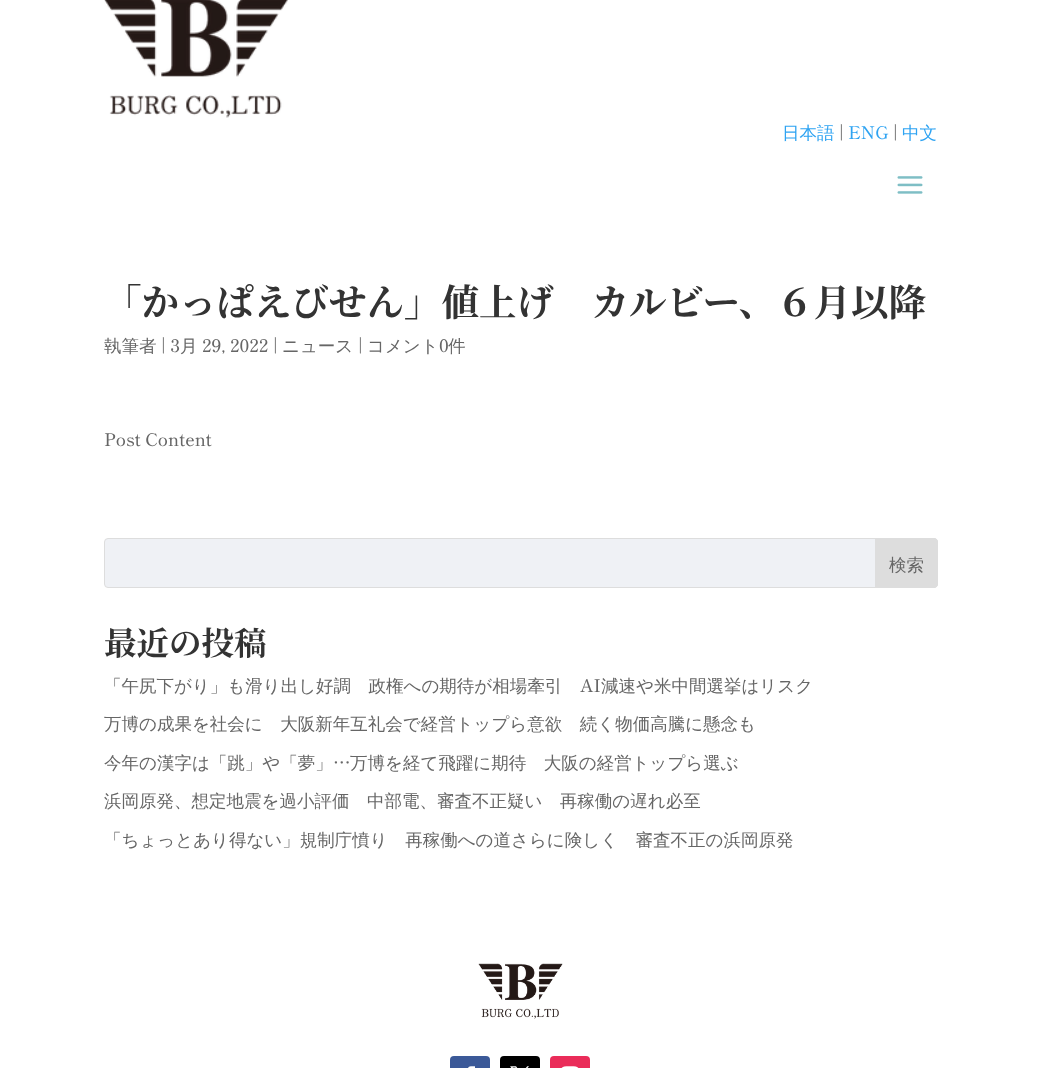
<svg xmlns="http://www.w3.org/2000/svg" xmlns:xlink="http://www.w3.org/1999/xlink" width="1041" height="1068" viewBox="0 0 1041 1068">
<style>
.cls-1{font:500 17.5px WenQuanYi Zen Hei;fill:#2ea3f2}
.cls-2{font:500 17.5px 'Shippori Mincho B1';fill:#666666}
.cls-3{font:500 17.5px 'Shippori Mincho B1';fill:#2ea3f2}
.cls-4{font:bold 37.5px Noto Serif JP;fill:#333333}
.cls-5{font:500 17.5px WenQuanYi Zen Hei;fill:#666666}
.cls-6{font:bold 32.5px Noto Serif JP;fill:#333333}
</style>
<rect width="100%" height="100%" fill="#ffffff"/>
<image xlink:href="image0.png" x="104" y="0" width="184" height="118"/>
<image xlink:href="image1.png" x="897" y="176" width="26" height="18"/>
<rect fill="#eff1f5" stroke="#dddddd" x="104.5" y="538.5" width="833" height="49" rx="3.5"/>
<path fill="#dddddd" stroke="#dddddd" d="M875.5 538.5H934C936 538.5 937.5 540 937.5 542V584C937.5 586 936 587.5 934 587.5H875.5Z"/>
<image xlink:href="image2.png" x="478" y="963" width="85" height="56"/>
<rect fill="#3b5998" x="450" y="1056" width="40" height="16" rx="4"/>
<image xlink:href="image3.png" x="468" y="1066" width="7" height="2"/>
<rect fill="#000000" x="500" y="1056" width="40" height="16" rx="4"/>
<image xlink:href="image4.png" x="510" y="1066" width="19" height="2"/>
<rect fill="#ea2c59" x="550" y="1056" width="40" height="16" rx="4"/>
<image xlink:href="image5.png" x="561" y="1066" width="18" height="2"/>
<text class="cls-1" x="782" y="139">日本語</text>
<text class="cls-2" x="839" y="139">|</text>
<text class="cls-3" x="848" y="139">ENG</text>
<text class="cls-2" x="893" y="139">|</text>
<text class="cls-1" x="902" y="139">中文</text>
<text class="cls-4" x="104" y="316">「かっぱえびせん」値上げ　カルビー、６月以降</text>
<text class="cls-5" x="104" y="352">執筆者</text>
<text class="cls-2" x="161" y="352">| 3</text>
<text class="cls-5" x="180" y="352">月</text>
<text class="cls-2" x="202" y="352">29, 2022 |</text>
<text class="cls-5" x="282" y="352">ニュース</text>
<text class="cls-2" x="358" y="352">|</text>
<text class="cls-5" x="367" y="352">コメント</text>
<text class="cls-2" x="439" y="352">0</text>
<text class="cls-5" x="448" y="352">件</text>
<text class="cls-2" x="104" y="446">Post Content</text>
<text class="cls-5" x="889" y="571">検索</text>
<text class="cls-6" x="104" y="655">最近の投稿</text>
<text class="cls-5" x="104" y="692">「午尻下がり」も滑り出し好調　政権への期待が相場牽引</text>
<text class="cls-2" x="580" y="692">AI</text>
<text class="cls-5" x="601" y="692">減速や米中間選挙はリスク</text>
<text class="cls-5" x="104" y="730">万博の成果を社会に　大阪新年互礼会で経営トップら意欲　続く物価高騰に懸念も</text>
<text class="cls-5" x="104" y="769">今年の漢字は「跳」や「夢」</text>
<text class="cls-2" x="333" y="769">…</text>
<text class="cls-5" x="350" y="769">万博を経て飛躍に期待　大阪の経営トップら選ぶ</text>
<text class="cls-5" x="104" y="807">浜岡原発、想定地震を過小評価　中部電、審査不正疑い　再稼働の遅れ必至</text>
<text class="cls-5" x="104" y="846">「ちょっとあり得ない」規制庁憤り　再稼働への道さらに険しく　審査不正の浜岡原発</text>
</svg>
